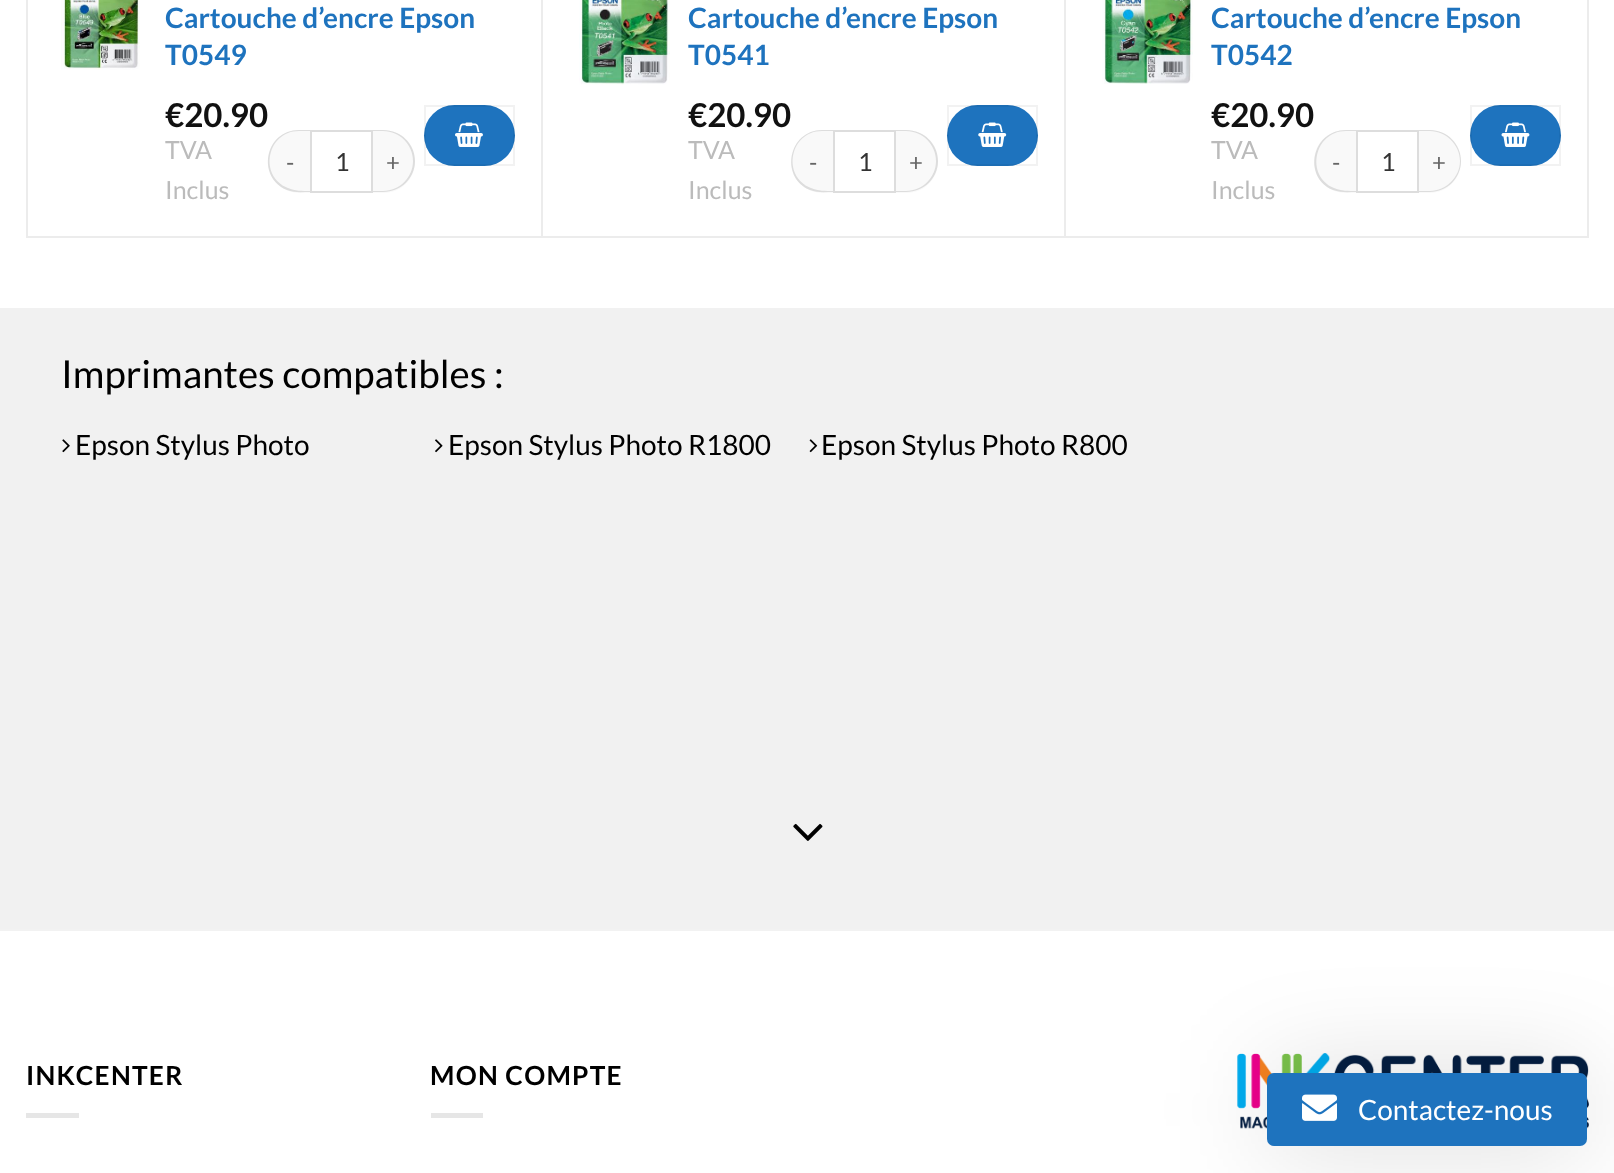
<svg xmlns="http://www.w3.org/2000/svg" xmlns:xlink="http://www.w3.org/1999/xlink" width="1614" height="1173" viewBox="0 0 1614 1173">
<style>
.cls-1{font:bold 28px Lato;fill:#1e73be}
.cls-2{font:bold 33px Lato;fill:#111111}
.cls-3{font:25px Lato;fill:#bbbbbb}
.cls-4{font:24px Lato;letter-spacing:1px;fill:#666666}
.cls-5{font:25px Lato;fill:#333333}
.cls-6{font:38.5px Lato;fill:#000000}
.cls-7{font:28px Lato;fill:#000000}
.cls-8{font:bold 26.25px Lato;letter-spacing:1.25px;fill:#000000}
.cls-9{font:28px Lato;fill:#ffffff}
</style>
<rect width="100%" height="100%" fill="#ffffff"/>
<rect fill="#ececec" x="26" y="236" width="1563" height="2"/>
<rect fill="#ececec" x="26" y="0" width="2" height="238"/>
<rect fill="#ececec" x="541" y="0" width="2" height="236"/>
<image xlink:href="image0.png" x="61" y="0" width="79" height="70"/>
<path fill="#f9f9f9" d="M299.5 130H310V193H299.5C282 193 268 179 268 161.5C268 144 282 130 299.5 130Z"/>
<path fill="#dddddd" fill-rule="evenodd" d="M299 130H310V192C302 192 294 193 287 190C256 177 265 130 299 130ZM299 131H310V191C302 191 295 191 288 188C258 176 267 131 299 131Z"/>
<rect fill="none" stroke="#dddddd" stroke-width="2" x="311" y="131" width="61" height="61"/>
<path fill="#f9f9f9" d="M373 130H383.5C401 130 415 144 415 161.5C415 179 401 193 383.5 193H373Z"/>
<path fill="#dddddd" fill-rule="evenodd" d="M373 130H383C401 130 415 144 415 161C415 178 401 192 383 192H373ZM373 131H383C400 131 413 145 413 161C413 177 400 191 383 191H373Z"/>
<rect fill="#1e73be" x="424" y="105" width="91" height="61" rx="30.5"/>
<rect fill="none" stroke="#000000" stroke-opacity="0.05" stroke-width="2" x="425" y="106" width="89" height="59"/>
<image xlink:href="image1.png" x="455" y="122" width="28" height="25"/>
<rect fill="#ececec" x="1064" y="0" width="2" height="236"/>
<image xlink:href="image2.png" x="579" y="0" width="91" height="85"/>
<path fill="#f9f9f9" d="M822.5 130H833V193H822.5C805 193 791 179 791 161.5C791 144 805 130 822.5 130Z"/>
<path fill="#dddddd" fill-rule="evenodd" d="M822 130H833V192C825 192 817 193 810 190C779 177 789 130 822 130ZM822 131H833V191C826 191 818 191 811 188C781 176 790 131 822 131Z"/>
<rect fill="none" stroke="#dddddd" stroke-width="2" x="834" y="131" width="61" height="61"/>
<path fill="#f9f9f9" d="M896 130H906.5C924 130 938 144 938 161.5C938 179 924 193 906.5 193H896Z"/>
<path fill="#dddddd" fill-rule="evenodd" d="M896 130H906C924 130 938 144 938 161C938 178 924 192 906 192H896ZM896 131H906C923 131 936 145 936 161C936 177 923 191 906 191H896Z"/>
<rect fill="#1e73be" x="947" y="105" width="91" height="61" rx="30.5"/>
<rect fill="none" stroke="#000000" stroke-opacity="0.05" stroke-width="2" x="948" y="106" width="89" height="59"/>
<image xlink:href="image3.png" x="978" y="122" width="29" height="25"/>
<rect fill="#ececec" x="1587" y="0" width="2" height="236"/>
<image xlink:href="image4.png" x="1102" y="0" width="91" height="84"/>
<path fill="#f9f9f9" d="M1345.5 130H1356V193H1345.5C1328 193 1314 179 1314 161.5C1314 144 1328 130 1345.5 130Z"/>
<path fill="#dddddd" fill-rule="evenodd" d="M1346 130H1356V192C1349 192 1341 193 1333 190C1302 177 1312 130 1346 130ZM1346 131H1356V191C1349 191 1341 191 1334 188C1305 176 1314 131 1346 131Z"/>
<rect fill="none" stroke="#dddddd" stroke-width="2" x="1357" y="131" width="61" height="61"/>
<path fill="#f9f9f9" d="M1419 130H1429.5C1447 130 1461 144 1461 161.5C1461 179 1447 193 1429.5 193H1419Z"/>
<path fill="#dddddd" fill-rule="evenodd" d="M1419 130H1430C1447 130 1461 144 1461 161C1461 178 1447 192 1430 192H1419ZM1419 131H1430C1446 131 1460 145 1460 161C1460 177 1446 191 1430 191H1419Z"/>
<rect fill="#1e73be" x="1470" y="105" width="91" height="61" rx="30.5"/>
<rect fill="none" stroke="#000000" stroke-opacity="0.05" stroke-width="2" x="1471" y="106" width="89" height="59"/>
<image xlink:href="image5.png" x="1501" y="122" width="29" height="25"/>
<rect fill="#f1f1f1" x="0" y="308" width="1614" height="621"/>
<image xlink:href="image6.png" x="62" y="439" width="8" height="14"/>
<image xlink:href="image7.png" x="435" y="439" width="8" height="14"/>
<image xlink:href="image8.png" x="809" y="439" width="9" height="14"/>
<image xlink:href="image9.png" x="793" y="823" width="30" height="18"/>
<rect fill="#f2f2f2" x="0" y="929" width="1614" height="2"/>
<rect fill="#e6e6e6" x="26" y="1113" width="53" height="5"/>
<rect fill="#e6e6e6" x="431" y="1113" width="52" height="5"/>
<image xlink:href="image10.png" x="1237" y="1053" width="352" height="76"/>
<rect fill="#000000" fill-opacity="0.15" filter="blur(52.5px)" x="1267" y="1073" width="320" height="73" rx="7"/>
<rect fill="#1e73be" x="1267" y="1073" width="320" height="73" rx="7"/>
<image xlink:href="image11.png" x="1302" y="1094" width="35" height="27"/>
<text class="cls-1"><tspan x="165" y="28">Cartouche d’encre Epson</tspan><tspan x="165" y="65">T0549</tspan></text>
<text class="cls-2" x="165" y="127">€20.90</text>
<text class="cls-3"><tspan x="165" y="159">TVA</tspan><tspan x="165" y="199">Inclus</tspan></text>
<text class="cls-4" x="286" y="171">-</text>
<text class="cls-5" x="335" y="171">1</text>
<text class="cls-4" x="386" y="171">+</text>
<text class="cls-1"><tspan x="688" y="28">Cartouche d’encre Epson</tspan><tspan x="688" y="65">T0541</tspan></text>
<text class="cls-2" x="688" y="127">€20.90</text>
<text class="cls-3"><tspan x="688" y="159">TVA</tspan><tspan x="688" y="199">Inclus</tspan></text>
<text class="cls-4" x="809" y="171">-</text>
<text class="cls-5" x="858" y="171">1</text>
<text class="cls-4" x="909" y="171">+</text>
<text class="cls-1"><tspan x="1211" y="28">Cartouche d’encre Epson</tspan><tspan x="1211" y="65">T0542</tspan></text>
<text class="cls-2" x="1211" y="127">€20.90</text>
<text class="cls-3"><tspan x="1211" y="159">TVA</tspan><tspan x="1211" y="199">Inclus</tspan></text>
<text class="cls-4" x="1332" y="171">-</text>
<text class="cls-5" x="1381" y="171">1</text>
<text class="cls-4" x="1432" y="171">+</text>
<text class="cls-6" x="61" y="388">Imprimantes compatibles :</text>
<text class="cls-7" x="75" y="455">Epson Stylus Photo</text>
<text class="cls-7" x="448" y="455">Epson Stylus Photo R1800</text>
<text class="cls-7" x="821" y="455">Epson Stylus Photo R800</text>
<text class="cls-8" x="26" y="1085">INKCENTER</text>
<text class="cls-8" x="430" y="1085">MON COMPTE</text>
<text class="cls-9" x="1358" y="1120">Contactez-nous</text>
</svg>
